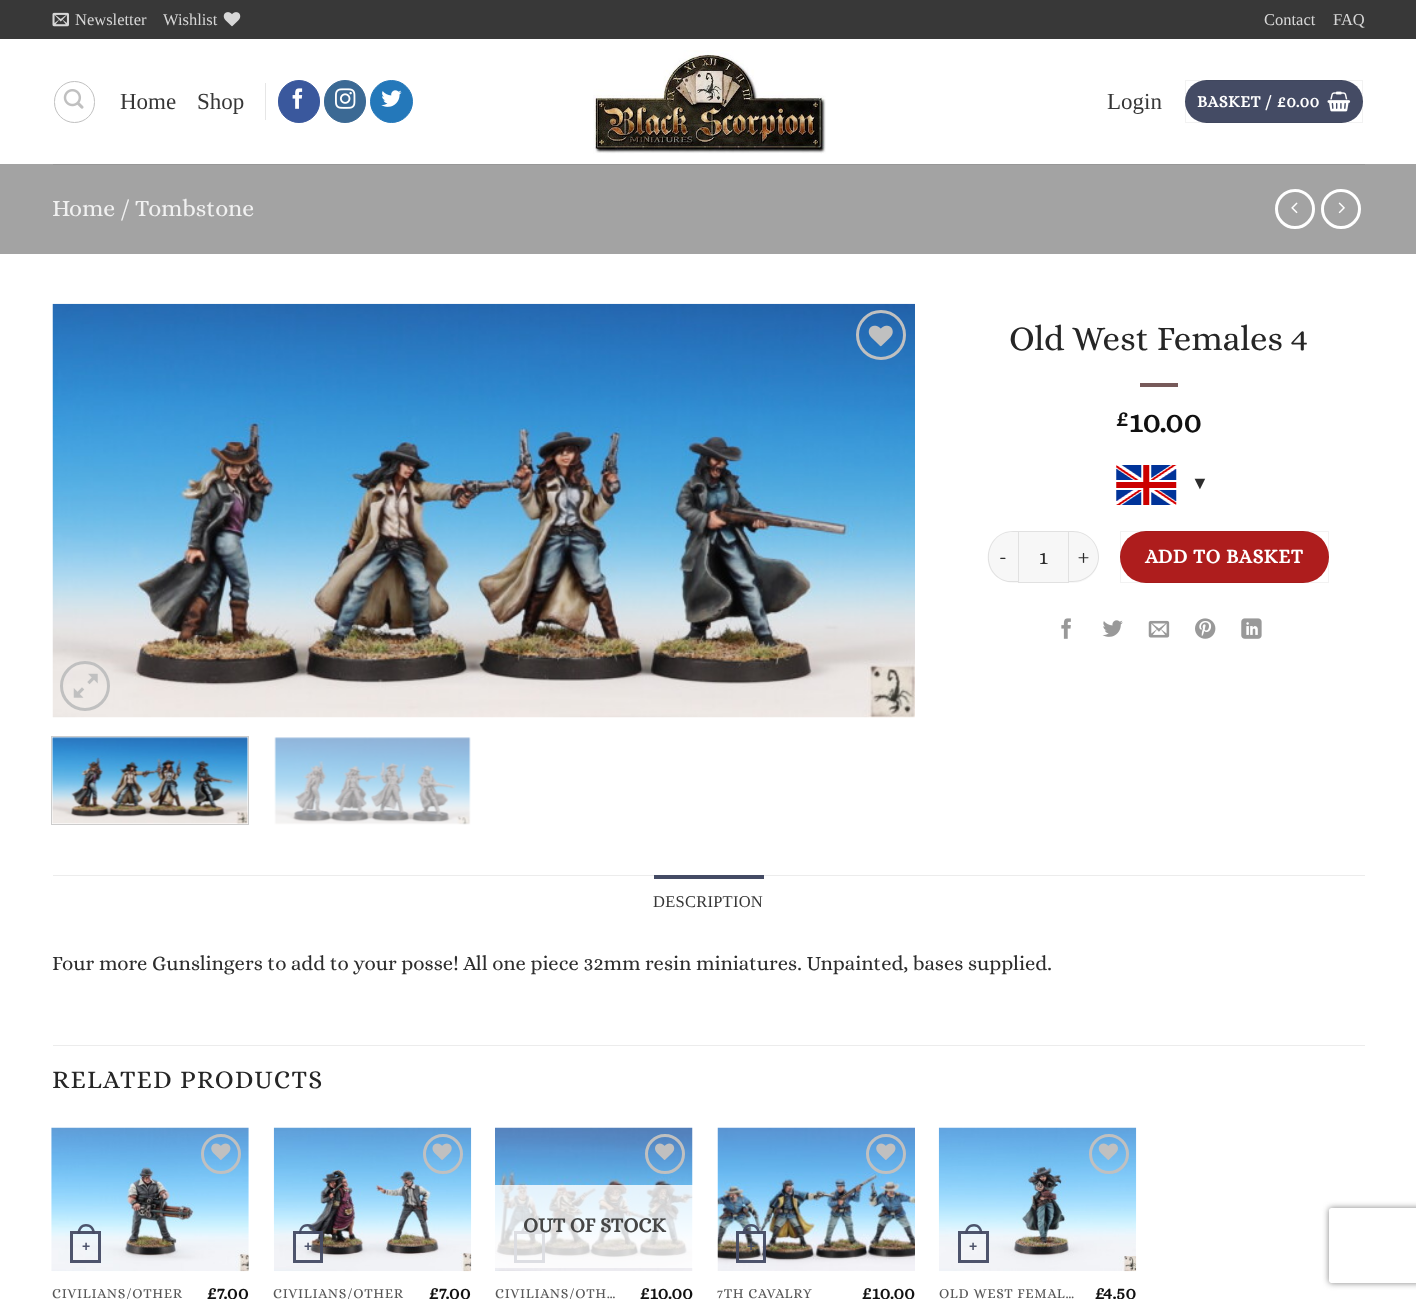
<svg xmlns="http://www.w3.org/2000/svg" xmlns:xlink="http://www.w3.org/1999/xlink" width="1416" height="1299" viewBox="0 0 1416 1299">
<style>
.cls-1{font:16.5px Liberation Serif;fill:#d7d7d7}
.cls-2{font:23px Liberation Serif;fill:#363636}
.cls-3{font:bold 16.5px Alice;letter-spacing:0.5px;fill:#ffffff}
.cls-4{font:23.75px Alice;fill:#f1f1f1}
.cls-5{font:35px Alice;fill:#262626}
.cls-6{font:bold 23px Alice;fill:#111111}
.cls-7{font:bold 31px Alice;fill:#111111}
.cls-8{font:18px Liberation Sans;fill:#2d2d2d}
.cls-9{font:20px Alice;letter-spacing:0.6px;fill:#2d2d2d}
.cls-10{font:20.6px Alice;fill:#2d2d2d}
.cls-11{font:bold 20px Alice;letter-spacing:0.6px;fill:#ffffff}
.cls-12{font:16.5px Liberation Serif;letter-spacing:0.25px;fill:#363636}
.cls-13{font:25.75px Alice;letter-spacing:1.25px;fill:#262626}
.cls-14{font:bold 14px Liberation Sans;fill:#4d536b}
.cls-15{font:14px Alice;letter-spacing:0.75px;fill:#575757}
.cls-16{font:bold 18.5px Alice;fill:#111111}
.cls-17{font:bold 20.6px Alice;fill:#454646}
.cls-18{font:bold 14px Liberation Sans;fill:#474d63}
</style>
<defs>
<clipPath id="clip1"><path d="M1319 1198H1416V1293H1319ZM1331.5 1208H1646.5C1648 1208 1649 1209 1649 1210.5V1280.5C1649 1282 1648 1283 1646.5 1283H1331.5C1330 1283 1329 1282 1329 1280.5V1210.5C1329 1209 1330 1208 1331.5 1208Z" clip-rule="evenodd"/></clipPath>
</defs>
<rect width="100%" height="100%" fill="#a3a3a3"/>
<rect fill="#383838" x="0" y="0" width="1416" height="39"/>
<image xlink:href="image0.png" x="52" y="12" width="17" height="15"/>
<image xlink:href="image1.png" x="223" y="12" width="18" height="15"/>
<rect fill="#ffffff" x="0" y="39" width="1416" height="125"/>
<rect fill="none" stroke="#c0c0c0" x="54.5" y="81.5" width="40" height="41" rx="20"/>
<image xlink:href="image2.png" x="63" y="89" width="21" height="20"/>
<rect fill="#e6e6e6" x="265" y="83" width="1" height="37"/>
<rect fill="#3a589d" stroke="#3a589d" x="278.5" y="80.5" width="41" height="42" rx="20.5"/>
<image xlink:href="image3.png" x="292" y="88" width="11" height="21"/>
<rect fill="#3b6994" stroke="#3b6994" x="324.5" y="80.5" width="41" height="42" rx="20.5"/>
<image xlink:href="image4.png" x="335" y="88" width="21" height="21"/>
<circle fill="#2478ba" stroke="#2478ba" cx="391.5" cy="101.5" r="21"/>
<image xlink:href="image5.png" x="381" y="90" width="21" height="17"/>
<image xlink:href="image6.png" x="593" y="50" width="233" height="104"/>
<rect fill="#444b64" x="1185" y="80" width="178" height="43" rx="21.5"/>
<rect fill="none" stroke="#000000" stroke-opacity="0.05" x="1185.5" y="80.5" width="177" height="42"/>
<image xlink:href="image7.png" x="1327" y="91" width="24" height="21"/>
<rect fill="#979797" x="53" y="164" width="1312" height="1"/>
<circle fill="none" stroke="#ffffff" stroke-width="3" cx="1295" cy="209" r="18.5"/>
<image xlink:href="image8.png" x="1291" y="202" width="7" height="12"/>
<circle fill="none" stroke="#ffffff" stroke-width="3" cx="1341" cy="209" r="18.5"/>
<image xlink:href="image9.png" x="1338" y="202" width="7" height="12"/>
<rect fill="#ffffff" x="0" y="254" width="1416" height="1045"/>
<image xlink:href="image10.png" x="52" y="303" width="863" height="415"/>
<circle fill="none" stroke="#c0c0c0" stroke-width="3" cx="881" cy="335" r="23.5"/>
<image xlink:href="image11.png" x="868" y="325" width="25" height="22"/>
<circle fill="none" stroke="#c0c0c0" stroke-width="3" cx="85" cy="686" r="23.5"/>
<image xlink:href="image12.png" x="73" y="673" width="25" height="25"/>
<rect fill="none" stroke="#cccccc" x="51.5" y="736.5" width="197" height="88"/>
<image xlink:href="image13.png" x="52" y="737" width="196" height="87"/>
<image xlink:href="image14.png" x="274" y="737" width="197" height="88"/>
<rect fill="#775a5a" x="1140" y="383" width="38" height="4"/>
<image xlink:href="image15.png" x="1116" y="465" width="61" height="40"/>
<path fill="#f7f7f7" d="M1014 531H1018V583H1014C999.5 583 988 571.5 988 557C988 542.5 999.5 531 1014 531Z"/>
<path fill="#000000" fill-opacity="0.09" fill-rule="evenodd" d="M1013 531H1018V582H1008C978 576 983 531 1013 531ZM1013 532H1018V581H1008C980 575 984 532 1013 532Z"/>
<rect fill="#f7f7f7" stroke="#e1e1e1" x="1018.5" y="531.5" width="50" height="51"/>
<path fill="#f7f7f7" d="M1069 531H1073C1087.5 531 1099 542.5 1099 557C1099 571.5 1087.5 583 1073 583H1069Z"/>
<path fill="#000000" fill-opacity="0.09" fill-rule="evenodd" d="M1069 531H1073C1087 531 1099 543 1099 557C1099 571 1087 582 1073 582H1069ZM1069 532H1073C1087 532 1098 543 1098 557C1098 570 1087 581 1073 581H1069Z"/>
<rect fill="#ae1d1d" x="1120" y="531" width="209" height="52" rx="26"/>
<rect fill="none" stroke="#000000" stroke-opacity="0.05" x="1120.5" y="531.5" width="208" height="51"/>
<image xlink:href="image16.png" x="1061" y="618" width="10" height="21"/>
<image xlink:href="image17.png" x="1102" y="620" width="21" height="17"/>
<image xlink:href="image18.png" x="1148" y="620" width="22" height="18"/>
<image xlink:href="image19.png" x="1195" y="618" width="21" height="21"/>
<image xlink:href="image20.png" x="1241" y="618" width="21" height="21"/>
<rect fill="#ececec" x="53" y="875" width="1312" height="1"/>
<rect fill="#444b64" x="654" y="875" width="110" height="4"/>
<rect fill="#ececec" x="53" y="1045" width="1312" height="1"/>
<image xlink:href="image21.png" x="51" y="1127" width="198" height="145"/>
<circle fill="none" stroke="#c0c0c0" stroke-width="3" cx="221" cy="1154" r="18.5"/>
<image xlink:href="image22.png" x="211" y="1143" width="20" height="17"/>
<rect fill="none" stroke="#444b64" stroke-opacity="0.95" stroke-width="3" x="71.5" y="1232.5" width="28" height="29"/>
<path fill="#444b64" fill-opacity="0.95" fill-rule="evenodd" d="M86 1224C92 1224 95 1228.5 95 1234H77.5C77.5 1228.5 80.5 1224 86 1224ZM86 1226.5C90.5 1226.5 92.5 1230 92.5 1234H80C80 1230 82 1226.5 86 1226.5Z"/>
<image xlink:href="image23.png" x="273" y="1127" width="199" height="145"/>
<circle fill="none" stroke="#c0c0c0" stroke-width="3" cx="443" cy="1154" r="18.5"/>
<image xlink:href="image24.png" x="432" y="1143" width="20" height="17"/>
<rect fill="none" stroke="#444b64" stroke-opacity="0.95" stroke-width="3" x="294.5" y="1232.5" width="27" height="29"/>
<path fill="#444b64" fill-opacity="0.95" fill-rule="evenodd" d="M307.5 1224C313.5 1224 316 1228.5 316 1234H299C299 1228.5 301.5 1224 307.5 1224ZM307.5 1226.5C312 1226.5 314 1230 314 1234H301C301 1230 303 1226.5 307.5 1226.5Z"/>
<image xlink:href="image25.png" x="495" y="1127" width="198" height="144"/>
<circle fill="none" stroke="#c0c0c0" stroke-width="3" cx="665" cy="1154" r="18.5"/>
<image xlink:href="image26.png" x="655" y="1143" width="20" height="17"/>
<rect fill="none" stroke="#444b64" stroke-opacity="0.95" stroke-width="3" x="515.5" y="1232.5" width="28" height="29"/>
<path fill="#444b64" fill-opacity="0.95" fill-rule="evenodd" d="M530 1224C536 1224 539 1228.5 539 1234H521C521 1228.5 524 1224 530 1224ZM530 1226.5C534.5 1226.5 536 1230 536 1234H524C524 1230 525.5 1226.5 530 1226.5Z"/>
<rect fill="#ffffff" fill-opacity="0.81" x="495" y="1185" width="198" height="83"/>
<image xlink:href="image27.png" x="717" y="1127" width="198" height="144"/>
<circle fill="none" stroke="#c0c0c0" stroke-width="3" cx="886" cy="1154" r="18.5"/>
<image xlink:href="image28.png" x="876" y="1143" width="20" height="17"/>
<rect fill="none" stroke="#444b64" stroke-opacity="0.95" stroke-width="3" x="737.5" y="1232.5" width="27" height="29"/>
<path fill="#444b64" fill-opacity="0.95" fill-rule="evenodd" d="M751 1224C757 1224 760 1228.5 760 1234H742.5C742.5 1228.5 745.5 1224 751 1224ZM751 1226.5C755.5 1226.5 757.5 1230 757.5 1234H745C745 1230 747 1226.5 751 1226.5Z"/>
<image xlink:href="image29.png" x="938" y="1127" width="199" height="145"/>
<circle fill="none" stroke="#c0c0c0" stroke-width="3" cx="1109" cy="1154" r="18.5"/>
<image xlink:href="image30.png" x="1098" y="1143" width="20" height="17"/>
<rect fill="none" stroke="#444b64" stroke-opacity="0.95" stroke-width="3" x="959.5" y="1232.5" width="28" height="29"/>
<path fill="#444b64" fill-opacity="0.95" fill-rule="evenodd" d="M974 1224C979.5 1224 982.5 1228.5 982.5 1234H965C965 1228.5 968 1224 974 1224ZM974 1226.5C978 1226.5 980 1230 980 1234H967.5C967.5 1230 969.5 1226.5 974 1226.5Z"/>
<g clip-path="url(#clip1)">
<rect fill="#808080" filter="blur(3px)" x="1329" y="1208" width="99" height="75" rx="2.5"/>
</g>
<text class="cls-1" x="75" y="25">Newsletter</text>
<text class="cls-1" x="163" y="25">Wishlist</text>
<text class="cls-1" x="1264" y="25">Contact</text>
<text class="cls-1" x="1333" y="25">FAQ</text>
<text class="cls-2" x="120" y="109">Home</text>
<text class="cls-2" x="197" y="109">Shop</text>
<text class="cls-2" x="1107" y="109">Login</text>
<text class="cls-3" x="1197" y="107">BASKET / £0.00</text>
<text class="cls-4" x="52" y="216">Home / Tombstone</text>
<text class="cls-5" x="1009" y="350">Old West Females 4</text>
<text class="cls-6" x="1115" y="426">£</text>
<text class="cls-7" x="1129" y="432">10.00</text>
<text class="cls-8" x="1191" y="489">▼</text>
<text class="cls-9" x="999" y="563">-</text>
<text class="cls-10" x="1039" y="564">1</text>
<text class="cls-9" x="1078" y="563">+</text>
<text class="cls-11" x="1145" y="563">ADD TO BASKET</text>
<text class="cls-12" x="653" y="907">DESCRIPTION</text>
<text class="cls-10" x="52" y="970">Four more Gunslingers to add to your posse! All one piece 32mm resin miniatures. Unpainted, bases supplied.</text>
<text class="cls-13" x="52" y="1088">RELATED PRODUCTS</text>
<text class="cls-14" x="82" y="1251">+</text>
<text class="cls-15" x="52" y="1298">CIVILIANS/OTHER</text>
<text class="cls-16" x="206" y="1299">£7.00</text>
<text class="cls-14" x="304" y="1251">+</text>
<text class="cls-15" x="273" y="1298">CIVILIANS/OTHER</text>
<text class="cls-16" x="428" y="1299">£7.00</text>
<text class="cls-17" x="523" y="1232">OUT OF STOCK</text>
<text class="cls-15" x="495" y="1298">CIVILIANS/OTH…</text>
<text class="cls-16" x="639" y="1299">£10.00</text>
<text class="cls-18" x="747" y="1251">+</text>
<text class="cls-15" x="717" y="1298">7TH CAVALRY</text>
<text class="cls-16" x="861" y="1299">£10.00</text>
<text class="cls-14" x="969" y="1251">+</text>
<text class="cls-15" x="939" y="1298">OLD WEST FEMAL…</text>
<text class="cls-16" x="1094" y="1299">£</text>
<text class="cls-16" x="1103" y="1299">4.50</text>
</svg>
